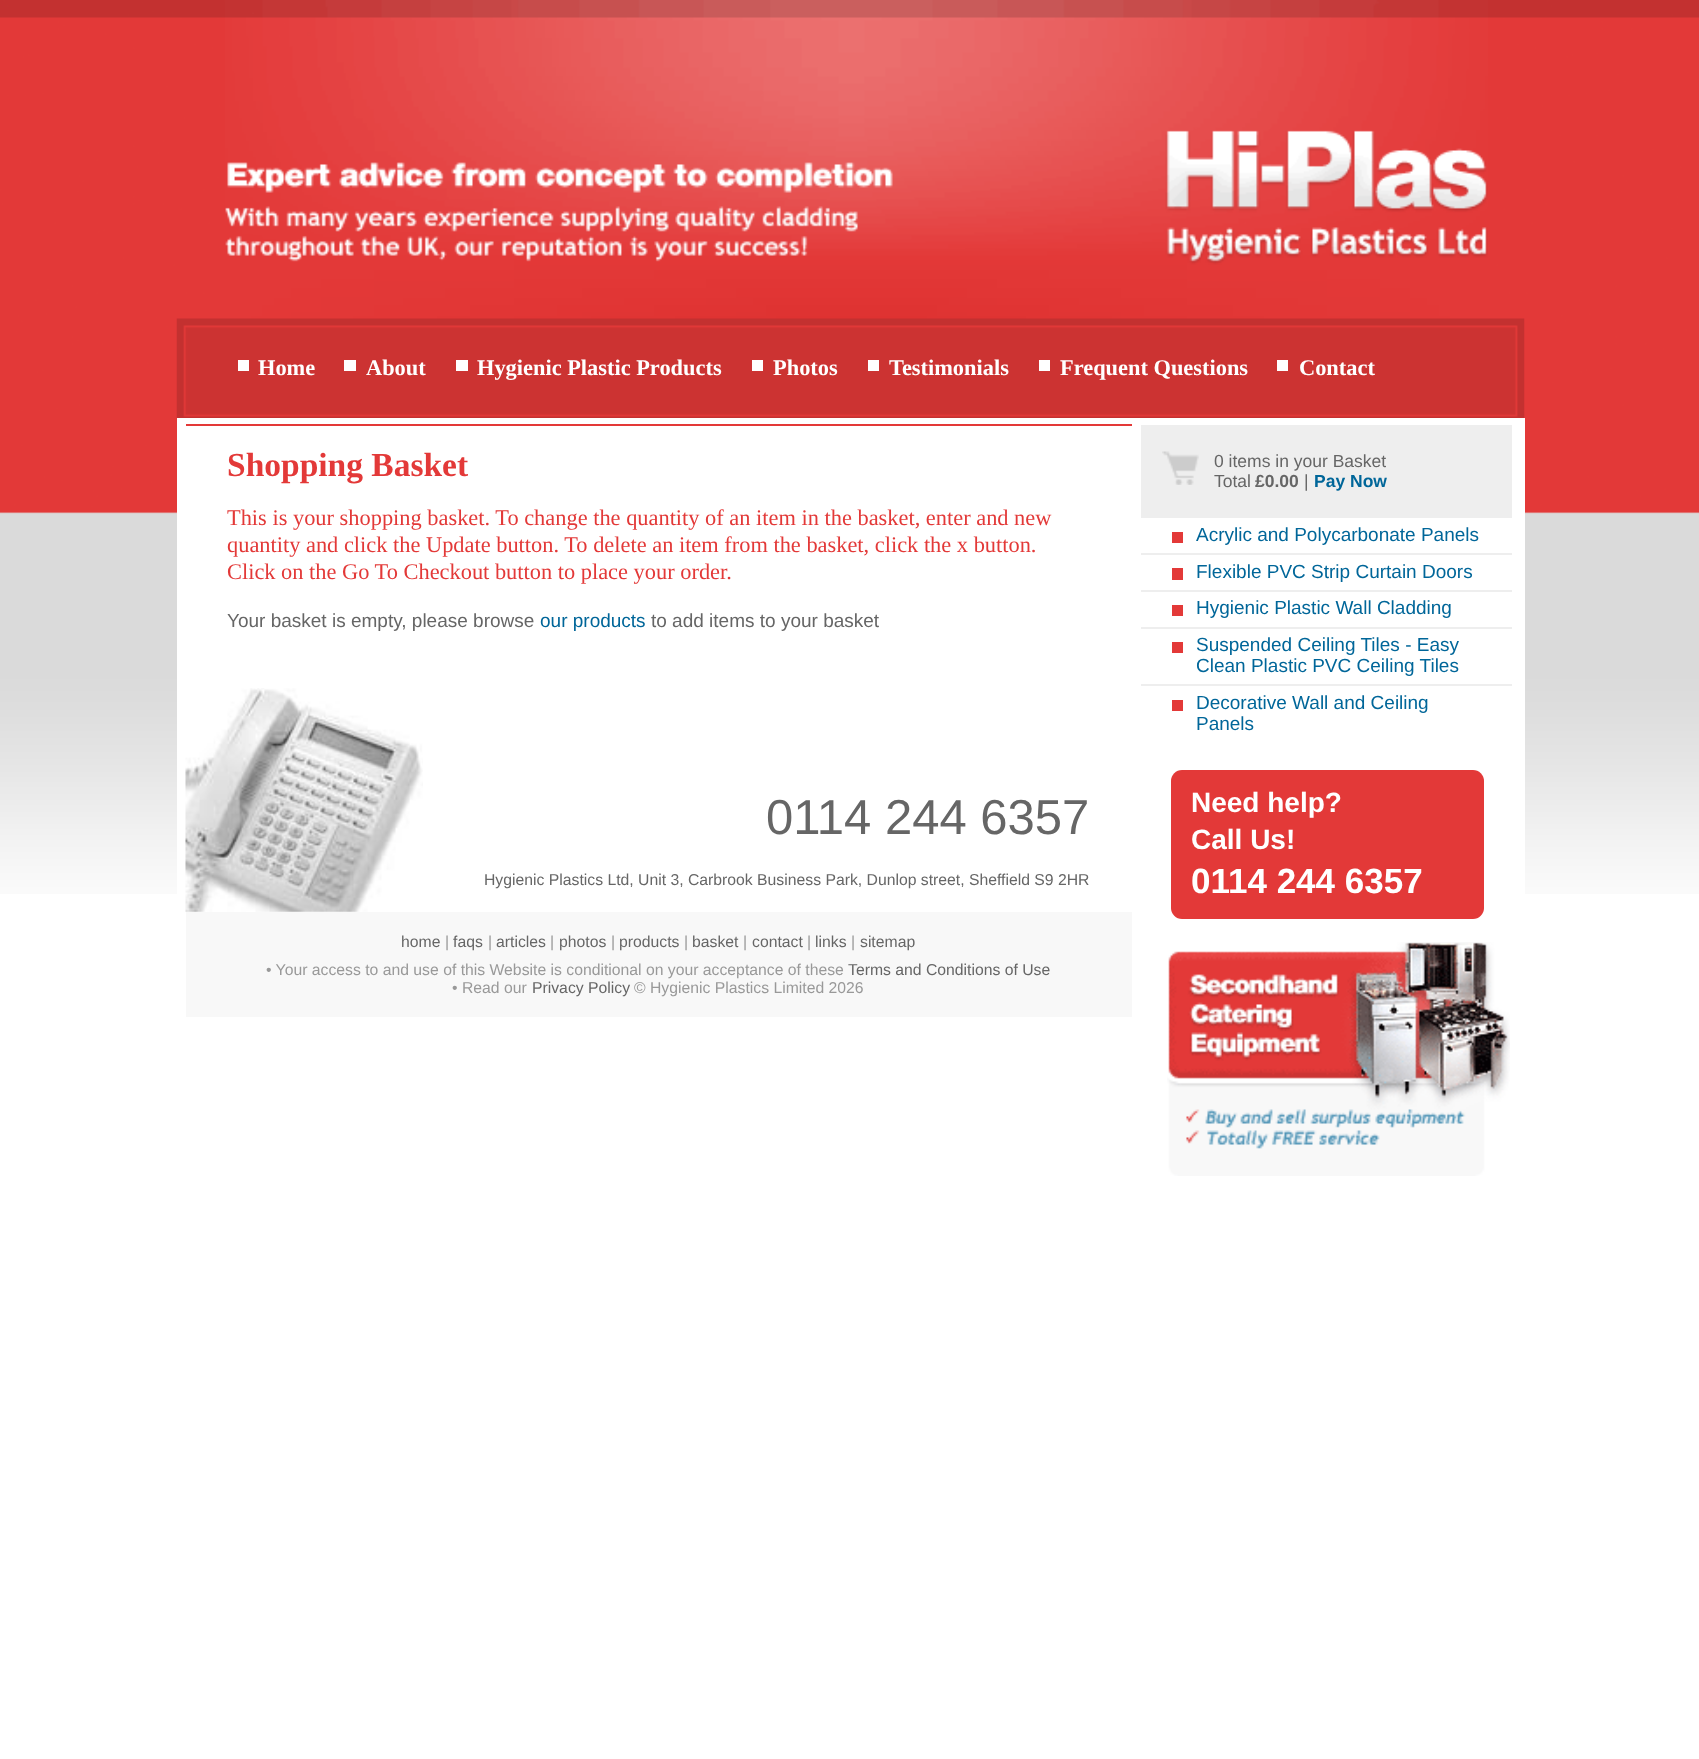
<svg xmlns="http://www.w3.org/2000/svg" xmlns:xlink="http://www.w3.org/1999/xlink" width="1699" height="1759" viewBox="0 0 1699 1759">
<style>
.cls-1{font:bold 22.4px Liberation Serif;fill:#ffffff}
.cls-2{font:bold 33.5px Liberation Serif;fill:#e33938}
.cls-3{font:22.4px Liberation Serif;fill:#e33938}
.cls-4{font:19px Liberation Sans;fill:#666666}
.cls-5{font:19px Liberation Sans;fill:#006699}
.cls-6{font:49px Liberation Sans;fill:#666666}
.cls-7{font:15.75px Liberation Sans;fill:#666666}
.cls-8{font:15.75px Liberation Sans;fill:#999999}
.cls-9{font:17.5px Liberation Sans;fill:#666666}
.cls-10{font:bold 17.5px Liberation Sans;fill:#666666}
.cls-11{font:bold 17.5px Liberation Sans;fill:#006699}
.cls-12{font:bold 28px Liberation Sans;fill:#ffffff}
.cls-13{font:bold 35px Liberation Sans;fill:#ffffff}
</style>
<rect width="100%" height="100%" fill="#ffffff"/>
<image xlink:href="image0.png" x="0" y="0" width="1699" height="894"/>
<image xlink:href="image1.png" x="225" y="0" width="1263" height="319"/>
<image xlink:href="image2.png" x="176" y="318" width="1349" height="101"/>
<rect fill="#ffffff" x="238" y="360" width="11" height="11"/>
<rect fill="#ffffff" x="344" y="360" width="12" height="11"/>
<rect fill="#ffffff" x="456" y="360" width="12" height="11"/>
<rect fill="#ffffff" x="752" y="360" width="11" height="11"/>
<rect fill="#ffffff" x="868" y="360" width="11" height="11"/>
<rect fill="#ffffff" x="1039" y="360" width="11" height="11"/>
<rect fill="#ffffff" x="1277" y="360" width="11" height="11"/>
<rect fill="#ffffff" x="177" y="418" width="1348" height="476"/>
<rect fill="#e33938" x="184" y="424" width="950" height="2"/>
<rect fill="#ffffff" x="1132" y="424" width="2" height="2"/>
<rect fill="#ffffff" x="184" y="424" width="2" height="2"/>
<image xlink:href="image3.png" x="185" y="688" width="238" height="224"/>
<rect fill="#f8f8f8" x="186" y="912" width="946" height="105"/>
<rect fill="#eeeeee" x="1141" y="425" width="371" height="93"/>
<image xlink:href="image4.png" x="1162" y="451" width="37" height="34"/>
<rect fill="#e33938" x="1172" y="532" width="11" height="11"/>
<rect fill="#e33938" x="1172" y="568" width="11" height="12"/>
<rect fill="#eeeeee" x="1141" y="553" width="371" height="2"/>
<rect fill="#e33938" x="1172" y="605" width="11" height="11"/>
<rect fill="#eeeeee" x="1141" y="590" width="371" height="2"/>
<rect fill="#e33938" x="1172" y="642" width="11" height="11"/>
<rect fill="#eeeeee" x="1141" y="627" width="371" height="2"/>
<rect fill="#e33938" x="1172" y="700" width="11" height="11"/>
<rect fill="#eeeeee" x="1141" y="684" width="371" height="2"/>
<rect fill="#e33938" x="1171" y="770" width="313" height="149" rx="11"/>
<image xlink:href="image5.png" x="1167" y="942" width="343" height="234"/>
<text class="cls-1" x="258" y="375">Home</text>
<text class="cls-1" x="366" y="375">About</text>
<text class="cls-1" x="477" y="375">Hygienic Plastic Products</text>
<text class="cls-1" x="773" y="375">Photos</text>
<text class="cls-1" x="889" y="375">Testimonials</text>
<text class="cls-1" x="1060" y="375">Frequent Questions</text>
<text class="cls-1" x="1299" y="375">Contact</text>
<text class="cls-2" x="227" y="476">Shopping Basket</text>
<text class="cls-3"><tspan x="227" y="525">This is your shopping basket. To change the quantity of an item in the basket, enter and new</tspan><tspan x="227" y="552">quantity and click the Update button. To delete an item from the basket, click the x button.</tspan><tspan x="227" y="579">Click on the Go To Checkout button to place your order.</tspan></text>
<text class="cls-4" x="227" y="627">Your basket is empty, please browse</text>
<text class="cls-5" x="540" y="627">our products</text>
<text class="cls-4" x="651" y="627">to add items to your basket</text>
<text class="cls-6" x="766" y="834">0114 244 6357</text>
<text class="cls-7" x="484" y="885">Hygienic Plastics Ltd, Unit 3, Carbrook Business Park, Dunlop street, Sheffield S9 2HR</text>
<text class="cls-7" x="401" y="947">home</text>
<text class="cls-8" x="445" y="947">|</text>
<text class="cls-7" x="453" y="947">faqs</text>
<text class="cls-8" x="488" y="947">|</text>
<text class="cls-7" x="496" y="947">articles</text>
<text class="cls-8" x="550" y="947">|</text>
<text class="cls-7" x="559" y="947">photos</text>
<text class="cls-8" x="611" y="947">|</text>
<text class="cls-7" x="619" y="947">products</text>
<text class="cls-8" x="684" y="947">|</text>
<text class="cls-7" x="692" y="947">basket</text>
<text class="cls-8" x="743" y="947">|</text>
<text class="cls-7" x="752" y="947">contact</text>
<text class="cls-8" x="807" y="947">|</text>
<text class="cls-7" x="815" y="947">links</text>
<text class="cls-8" x="851" y="947">|</text>
<text class="cls-7" x="860" y="947">sitemap</text>
<text class="cls-8" x="266" y="975">• Your access to and use of this Website is conditional on your acceptance of these</text>
<text class="cls-7" x="848" y="975">Terms and Conditions of Use</text>
<text class="cls-8" x="452" y="993">• Read our</text>
<text class="cls-7" x="532" y="993">Privacy Policy</text>
<text class="cls-8" x="634" y="993">© Hygienic Plastics Limited 2026</text>
<text class="cls-9"><tspan x="1214" y="467">0 items in your Basket</tspan><tspan x="1214" y="487">Total</tspan></text>
<text class="cls-10" x="1255" y="487">£0.00</text>
<text class="cls-9" x="1304" y="487">|</text>
<text class="cls-11" x="1314" y="487">Pay Now</text>
<text class="cls-5"><tspan x="1196" y="541">Acrylic and Polycarbonate Panels</tspan><tspan x="1196" y="578">Flexible PVC Strip Curtain Doors</tspan><tspan x="1196" y="614">Hygienic Plastic Wall Cladding</tspan><tspan x="1196" y="651">Suspended Ceiling Tiles - Easy</tspan><tspan x="1196" y="672">Clean Plastic PVC Ceiling Tiles</tspan><tspan x="1196" y="709">Decorative Wall and Ceiling</tspan><tspan x="1196" y="730">Panels</tspan></text>
<text class="cls-12"><tspan x="1191" y="812">Need help?</tspan><tspan x="1191" y="849">Call Us!</tspan></text>
<text class="cls-13" x="1191" y="893">0114 244 6357</text>
</svg>
